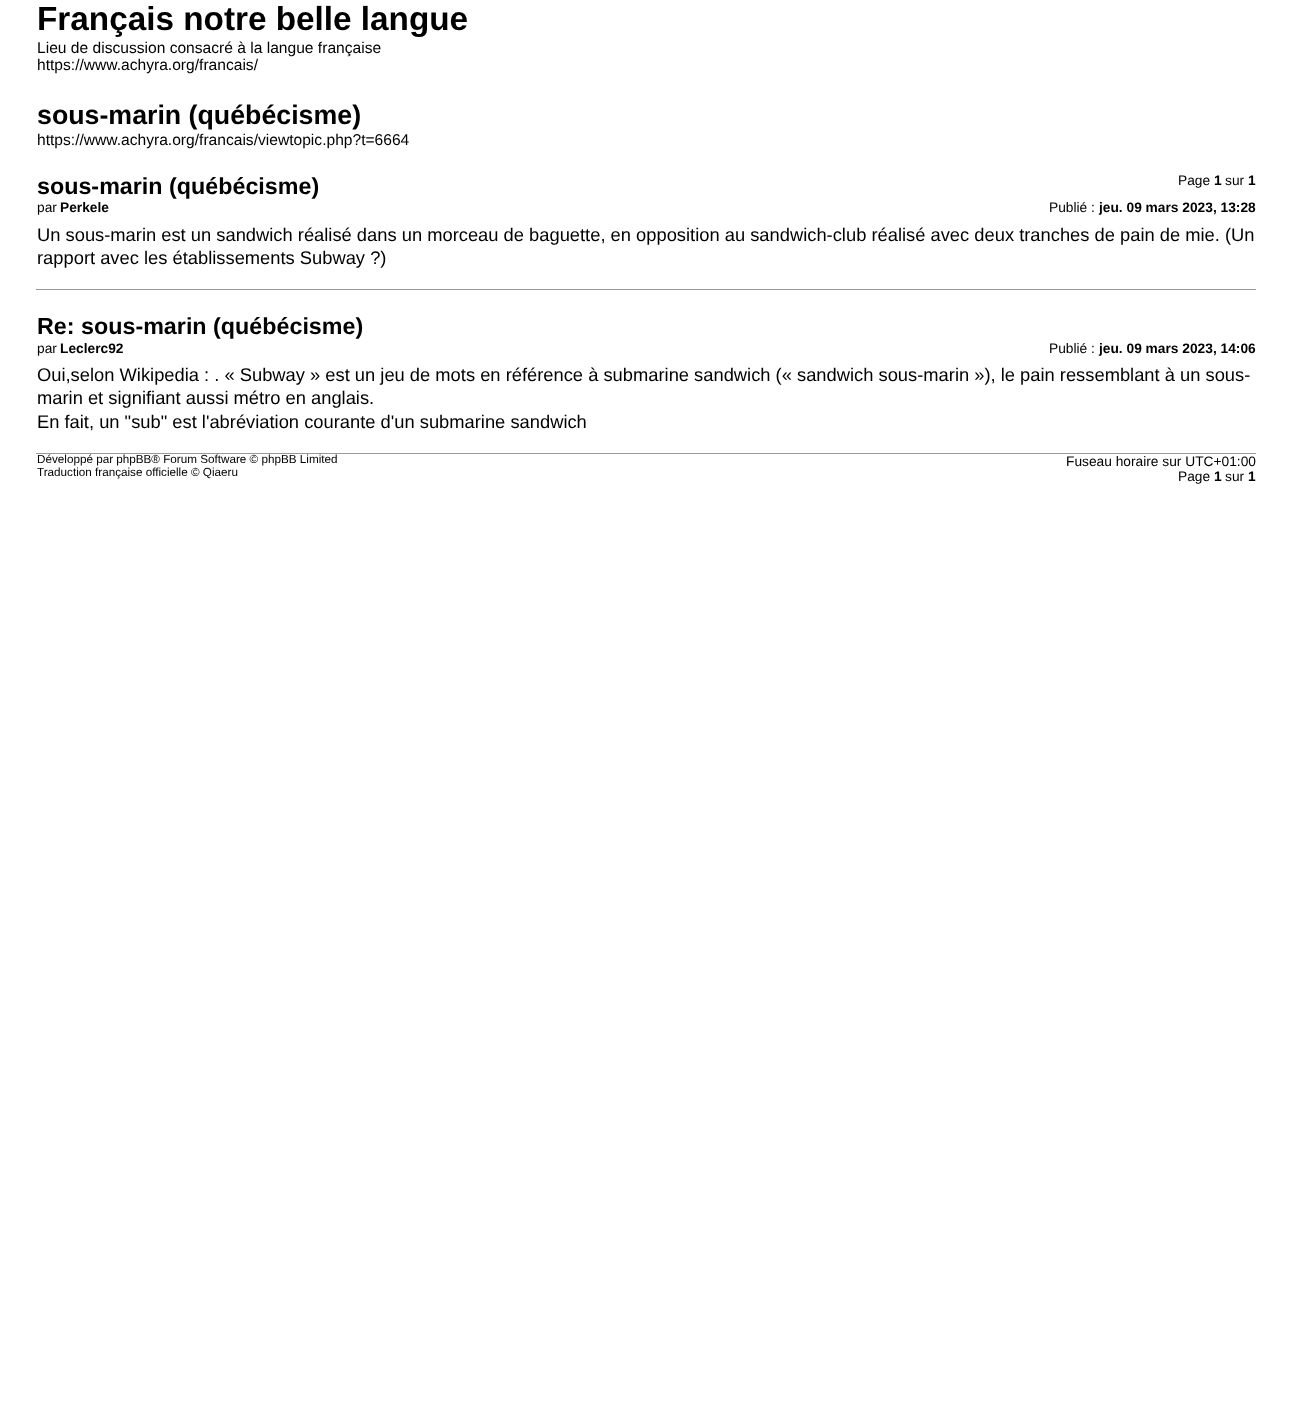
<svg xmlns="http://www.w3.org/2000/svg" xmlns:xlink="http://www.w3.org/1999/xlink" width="1292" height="1422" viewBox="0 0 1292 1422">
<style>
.cls-1{font:bold 33.3px Liberation Sans;fill:#000000}
.cls-2{font:15.6px Liberation Sans;fill:#000000}
.cls-3{font:bold 26.75px Liberation Sans;fill:#000000}
.cls-4{font:13.75px Liberation Sans;fill:#000000}
.cls-5{font:bold 13.75px Liberation Sans;fill:#000000}
.cls-6{font:bold 23.3px Liberation Sans;fill:#000000}
.cls-7{font:18.33px Liberation Sans;fill:#000000}
.cls-8{font:11.7px Liberation Sans;fill:#000000}
</style>
<rect width="100%" height="100%" fill="#ffffff"/>
<rect fill="#999999" x="36" y="289" width="1220" height="1"/>
<rect fill="#999999" x="36" y="453" width="1220" height="1"/>
<text class="cls-1" x="37" y="30">Français notre belle langue</text>
<text class="cls-2"><tspan x="37" y="53">Lieu de discussion consacré à la langue française</tspan><tspan x="37" y="70">https://www.achyra.org/francais/</tspan></text>
<text class="cls-3" x="37" y="124">sous-marin (québécisme)</text>
<text class="cls-2" x="37" y="145">https://www.achyra.org/francais/viewtopic.php?t=6664</text>
<text class="cls-4" x="1178" y="185">Page</text>
<text class="cls-5" x="1214" y="185">1</text>
<text class="cls-4" x="1225" y="185">sur</text>
<text class="cls-5" x="1248" y="185">1</text>
<text class="cls-6" x="37" y="194">sous-marin (québécisme)</text>
<text class="cls-4" x="37" y="212">par</text>
<text class="cls-5" x="60" y="212">Perkele</text>
<text class="cls-4" x="1049" y="212">Publié :</text>
<text class="cls-5" x="1099" y="212">jeu. 09 mars 2023, 13:28</text>
<text class="cls-7"><tspan x="37" y="241">Un sous-marin est un sandwich réalisé dans un morceau de baguette, en opposition au sandwich-club réalisé avec deux tranches de pain de mie. (Un</tspan><tspan x="37" y="264">rapport avec les établissements Subway ?)</tspan></text>
<text class="cls-6" x="37" y="334">Re: sous-marin (québécisme)</text>
<text class="cls-4" x="37" y="353">par</text>
<text class="cls-5" x="60" y="353">Leclerc92</text>
<text class="cls-4" x="1049" y="353">Publié :</text>
<text class="cls-5" x="1099" y="353">jeu. 09 mars 2023, 14:06</text>
<text class="cls-7"><tspan x="37" y="381">Oui,selon Wikipedia : . « Subway » est un jeu de mots en référence à submarine sandwich (« sandwich sous-marin »), le pain ressemblant à un sous-</tspan><tspan x="37" y="404">marin et signifiant aussi métro en anglais.</tspan><tspan x="37" y="428">En fait, un "sub" est l'abréviation courante d'un submarine sandwich</tspan></text>
<text class="cls-8"><tspan x="37" y="463">Développé par phpBB® Forum Software © phpBB Limited</tspan><tspan x="37" y="476">Traduction française officielle © Qiaeru</tspan></text>
<text class="cls-4" x="1066" y="466">Fuseau horaire sur UTC+01:00</text>
<text class="cls-4" x="1178" y="481">Page</text>
<text class="cls-5" x="1214" y="481">1</text>
<text class="cls-4" x="1225" y="481">sur</text>
<text class="cls-5" x="1248" y="481">1</text>
</svg>
